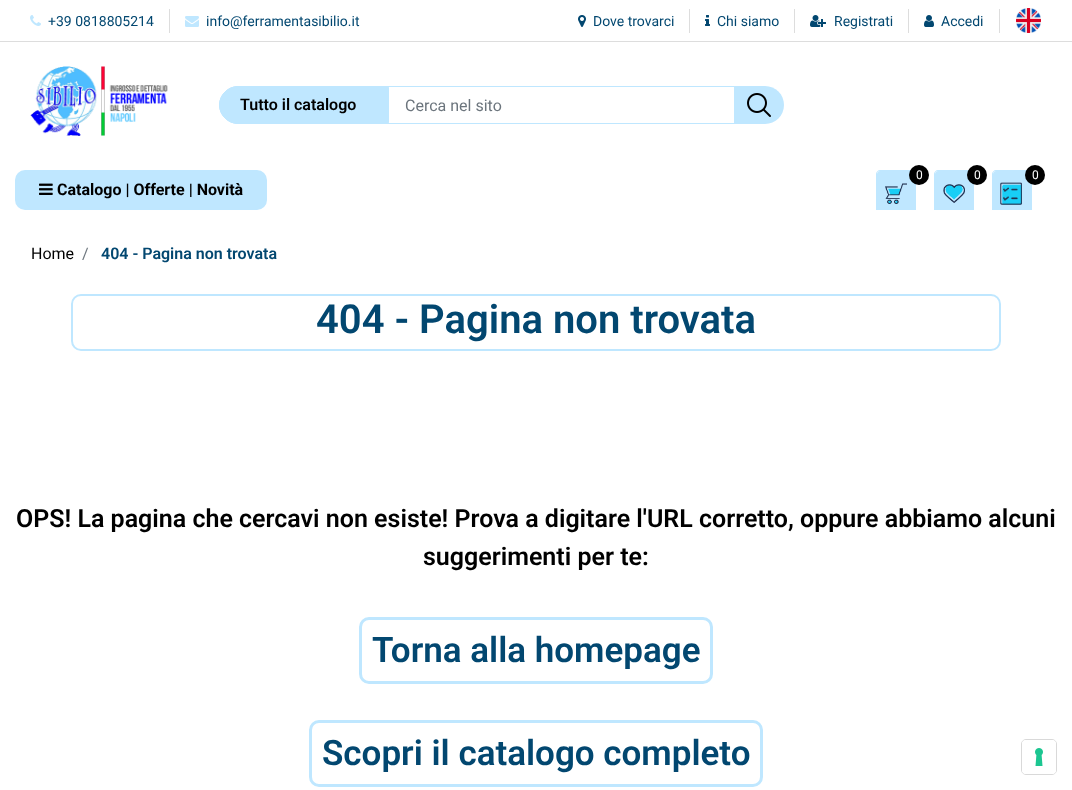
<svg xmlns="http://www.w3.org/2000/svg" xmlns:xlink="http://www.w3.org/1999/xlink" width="1072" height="790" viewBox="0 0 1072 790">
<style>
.cls-1{font:14px Roboto;fill:#024770}
.cls-2{font:600 16px Roboto;fill:#000000}
.cls-3{font:16px Roboto;fill:#6c757d}
.cls-4{font:12px Roboto;fill:#ffffff}
.cls-5{font:bold 16px Roboto;fill:#000000}
.cls-6{font:16px Roboto;fill:#000000}
.cls-7{font:600 16px Roboto;fill:#024770}
.cls-8{font:600 40px Roboto;fill:#024770}
.cls-9{font:600 25px Roboto;fill:#000000}
.cls-10{font:600 35px Roboto;fill:#024770}
</style>
<rect width="100%" height="100%" fill="#ffffff"/>
<rect fill="#dddddd" x="0" y="41" width="1072" height="1"/>
<rect fill="#dddddd" x="169" y="9" width="1" height="24"/>
<image xlink:href="image0.png" x="30" y="15" width="11" height="11"/>
<image xlink:href="image1.png" x="185" y="16" width="14" height="11"/>
<rect fill="#dddddd" x="689" y="9" width="1" height="24"/>
<image xlink:href="image2.png" x="578" y="15" width="8" height="12"/>
<rect fill="#dddddd" x="794" y="9" width="1" height="24"/>
<image xlink:href="image3.png" x="705" y="15" width="5" height="11"/>
<rect fill="#dddddd" x="908" y="9" width="1" height="24"/>
<image xlink:href="image4.png" x="810" y="15" width="16" height="12"/>
<rect fill="#dddddd" x="999" y="9" width="1" height="24"/>
<image xlink:href="image5.png" x="924" y="15" width="10" height="12"/>
<image xlink:href="image6.png" x="1016" y="8" width="25" height="25"/>
<image xlink:href="image7.png" x="30" y="66" width="138" height="70"/>
<path fill="none" stroke="#bfe7ff" d="M238 86.5H764.5C765 86.5 765.5 87 765.5 87.5V122.5C765.5 123 765 123.5 764.5 123.5H238C228 123.5 219.5 115 219.5 105C219.5 95 228 86.5 238 86.5Z"/>
<path fill="#bfe7ff" stroke="#bfe7ff" d="M238 86.5H387.5C388 86.5 388.5 87 388.5 87.5V122.5C388.5 123 388 123.5 387.5 123.5H238C228 123.5 219.5 115 219.5 105C219.5 95 228 86.5 238 86.5Z"/>
<path fill="#bfe7ff" d="M735.5 86H765C775.5 86 784 94.5 784 105C784 115.5 775.5 124 765 124H735.5C734.5 124 734 123.5 734 122.5V87.5C734 86.5 734.5 86 735.5 86Z"/>
<image xlink:href="image8.png" x="747" y="93" width="24" height="24"/>
<path fill="#bfe7ff" d="M880 171H912C913.5 171 915 172.5 915 174V210H877V174C877 172.5 878.5 171 880 171Z"/>
<path fill="#bfe7ff" fill-rule="evenodd" d="M880 170H912C914 170 916 172 916 174V210H876V174C876 172 878 170 880 170ZM880 171H912C914 171 915 172 915 174V210H877V174C877 172 878 171 880 171Z"/>
<image xlink:href="image9.png" x="885" y="183" width="22" height="21"/>
<circle fill="#000000" cx="919" cy="175" r="10"/>
<path fill="#bfe7ff" d="M938 171H970C971.5 171 973 172.5 973 174V210H935V174C935 172.5 936.5 171 938 171Z"/>
<path fill="#bfe7ff" fill-rule="evenodd" d="M938 170H970C972 170 974 172 974 174V210H934V174C934 172 936 170 938 170ZM938 171H970C972 171 973 172 973 174V210H935V174C935 172 936 171 938 171Z"/>
<image xlink:href="image10.png" x="943" y="184" width="22" height="19"/>
<circle fill="#000000" cx="977" cy="175" r="10"/>
<path fill="#bfe7ff" d="M996 171H1028C1029.5 171 1031 172.5 1031 174V210H993V174C993 172.5 994.5 171 996 171Z"/>
<path fill="#bfe7ff" fill-rule="evenodd" d="M996 170H1028C1030 170 1032 172 1032 174V210H992V174C992 172 994 170 996 170ZM996 171H1028C1030 171 1031 172 1031 174V210H993V174C993 172 994 171 996 171Z"/>
<image xlink:href="image11.png" x="1000" y="182" width="22" height="23"/>
<circle fill="#000000" cx="1035" cy="175" r="10"/>
<rect fill="#bfe7ff" x="15" y="170" width="252" height="40" rx="10"/>
<image xlink:href="image12.png" x="39" y="183" width="14" height="12"/>
<rect fill="none" stroke="#bfe7ff" stroke-width="2" x="72" y="295" width="928" height="55" rx="9"/>
<rect fill="none" stroke="#bfe7ff" stroke-width="3" x="360.5" y="618.5" width="351" height="64" rx="8.5"/>
<rect fill="none" stroke="#bfe7ff" stroke-width="3" x="310.5" y="721.5" width="451" height="64" rx="8.5"/>
<rect fill="none" stroke="#d9d9d9" x="1021.5" y="739.5" width="35" height="35" rx="4.5"/>
<rect fill="#ffffff" x="1022" y="740" width="34" height="34" rx="4"/>
<image xlink:href="image13.png" x="1035" y="748" width="8" height="18"/>
<text class="cls-1" x="48" y="26">+39 0818805214</text>
<text class="cls-1" x="206" y="26">info@ferramentasibilio.it</text>
<text class="cls-1" x="593" y="26">Dove trovarci</text>
<text class="cls-1" x="717" y="26">Chi siamo</text>
<text class="cls-1" x="834" y="26">Registrati</text>
<text class="cls-1" x="941" y="26">Accedi</text>
<text class="cls-2" x="240" y="110">Tutto il catalogo</text>
<text class="cls-3" x="405" y="111">Cerca nel sito</text>
<text class="cls-4" x="916" y="179">0</text>
<text class="cls-4" x="974" y="179">0</text>
<text class="cls-4" x="1032" y="179">0</text>
<text class="cls-5" x="57" y="195">Catalogo | Offerte | Novità</text>
<text class="cls-6" x="31" y="259">Home</text>
<text class="cls-3" x="82" y="259">/</text>
<text class="cls-7" x="101" y="259">404 - Pagina non trovata</text>
<text class="cls-8" x="316" y="333">404 - Pagina non trovata</text>
<text class="cls-9" x="16" y="527">OPS! La pagina che cercavi non esiste! Prova a digitare l'URL corretto, oppure abbiamo alcuni</text>
<text class="cls-9" x="423" y="565">suggerimenti per te:</text>
<text class="cls-10" x="372" y="662">Torna alla homepage</text>
<text class="cls-10" x="322" y="765">Scopri il catalogo completo</text>
</svg>
